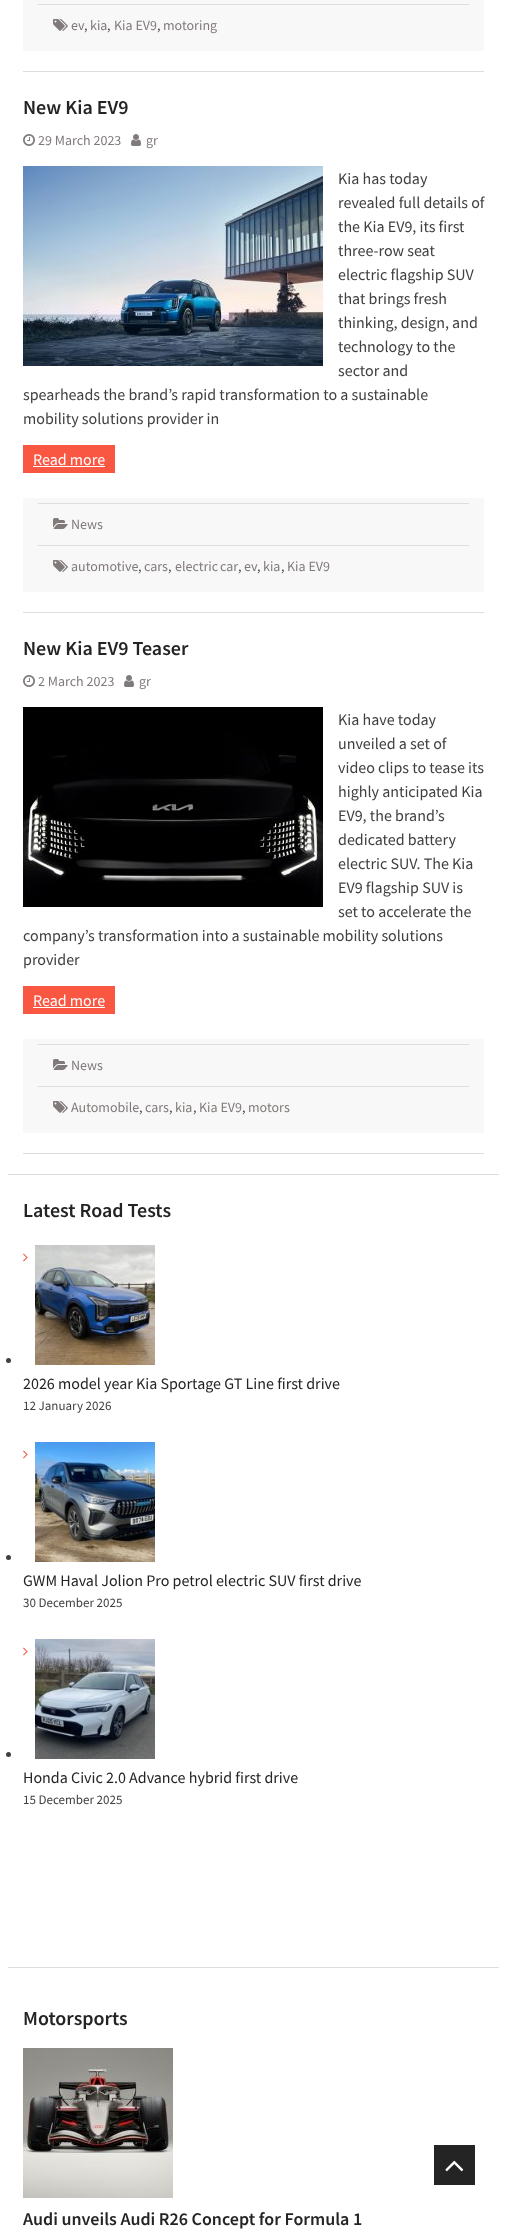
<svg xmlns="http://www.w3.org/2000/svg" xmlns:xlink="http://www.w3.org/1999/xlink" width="507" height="2235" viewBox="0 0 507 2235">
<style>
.cls-1{font:14px Source Sans Pro;fill:#807a7a}
.cls-2{font:14px Source Sans Pro;fill:#404040}
.cls-3{font:600 20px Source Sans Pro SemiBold;fill:#242424}
.cls-4{font:16px Source Sans Pro;fill:#404040}
.cls-5{font:16px Source Sans Pro;fill:#ffffff}
.cls-6{font:16px Source Sans Pro;fill:#242424}
.cls-7{font:13px Source Sans Pro;fill:#404040}
.cls-8{font:600 18px Source Sans Pro SemiBold;fill:#242424}
</style>
<rect width="100%" height="100%" fill="#ffffff"/>
<rect fill="#dddddd" x="8" y="1174" width="491" height="1"/>
<rect fill="#dddddd" x="23" y="71" width="461" height="1"/>
<rect fill="#f9f8f8" x="23" y="0" width="461" height="51"/>
<rect fill="#dddddd" x="38" y="4" width="431" height="1"/>
<image xlink:href="image0.png" x="53" y="19" width="15" height="12"/>
<rect fill="#dddddd" x="23" y="612" width="461" height="1"/>
<image xlink:href="image1.png" x="23" y="134" width="12" height="12"/>
<image xlink:href="image2.png" x="131" y="134" width="10" height="12"/>
<image xlink:href="image3.png" x="23" y="166" width="300" height="200"/>
<rect fill="#fa5742" x="23" y="445" width="92" height="28"/>
<rect fill="#ffffff" x="33" y="466" width="72" height="1"/>
<rect fill="#f9f8f8" x="23" y="498" width="461" height="94"/>
<rect fill="#dddddd" x="38" y="503" width="431" height="1"/>
<image xlink:href="image4.png" x="53" y="518" width="15" height="11"/>
<rect fill="#dddddd" x="38" y="545" width="431" height="1"/>
<image xlink:href="image0.png" x="53" y="560" width="15" height="12"/>
<rect fill="#dddddd" x="23" y="1153" width="461" height="1"/>
<image xlink:href="image1.png" x="23" y="675" width="12" height="12"/>
<image xlink:href="image2.png" x="124" y="675" width="10" height="12"/>
<image xlink:href="image5.png" x="23" y="707" width="300" height="200"/>
<rect fill="#fa5742" x="23" y="986" width="92" height="28"/>
<rect fill="#ffffff" x="33" y="1007" width="72" height="1"/>
<rect fill="#f9f8f8" x="23" y="1039" width="461" height="94"/>
<rect fill="#dddddd" x="38" y="1044" width="431" height="1"/>
<image xlink:href="image4.png" x="53" y="1059" width="15" height="11"/>
<rect fill="#dddddd" x="38" y="1086" width="431" height="1"/>
<image xlink:href="image0.png" x="53" y="1101" width="15" height="12"/>
<rect fill="#dddddd" x="8" y="1967" width="491" height="1"/>
<image xlink:href="image6.png" x="23" y="1253" width="5" height="9"/>
<image xlink:href="image7.png" x="35" y="1245" width="120" height="120"/>
<circle fill="#404040" cx="8.5" cy="1360.5" r="2.5"/>
<image xlink:href="image6.png" x="23" y="1450" width="5" height="9"/>
<image xlink:href="image8.png" x="35" y="1442" width="120" height="120"/>
<circle fill="#404040" cx="8.5" cy="1557.5" r="2.5"/>
<image xlink:href="image6.png" x="23" y="1647" width="5" height="9"/>
<image xlink:href="image9.png" x="35" y="1639" width="120" height="120"/>
<circle fill="#404040" cx="8.5" cy="1754.5" r="2.5"/>
<image xlink:href="image10.png" x="23" y="2048" width="150" height="150"/>
<rect fill="#242424" x="434" y="2145" width="41" height="40"/>
<image xlink:href="image11.png" x="445" y="2160" width="19" height="12"/>
<text class="cls-1" x="71" y="30">ev</text>
<text class="cls-2" x="84" y="30">,</text>
<text class="cls-1" x="90" y="30">kia</text>
<text class="cls-2" x="107" y="30">,</text>
<text class="cls-1" x="114" y="30">Kia EV9</text>
<text class="cls-2" x="157" y="30">,</text>
<text class="cls-1" x="163" y="30">motoring</text>
<text class="cls-3" x="23" y="114">New Kia EV9</text>
<text class="cls-1" x="38" y="145">29 March 2023</text>
<text class="cls-1" x="146" y="145">gr</text>
<text class="cls-4"><tspan x="338" y="184">Kia has today</tspan><tspan x="338" y="208">revealed full details of</tspan><tspan x="338" y="232">the Kia EV9, its first</tspan><tspan x="338" y="256">three-row seat</tspan><tspan x="338" y="280">electric flagship SUV</tspan><tspan x="338" y="304">that brings fresh</tspan><tspan x="338" y="328">thinking, design, and</tspan><tspan x="338" y="352">technology to the</tspan><tspan x="338" y="376">sector and</tspan></text>
<text class="cls-4"><tspan x="23" y="400">spearheads the brand’s rapid transformation to a sustainable</tspan><tspan x="23" y="424">mobility solutions provider in</tspan></text>
<text class="cls-5" x="33" y="465">Read more</text>
<text class="cls-1" x="71" y="529">News</text>
<text class="cls-1" x="71" y="571">automotive</text>
<text class="cls-2" x="138" y="571">,</text>
<text class="cls-1" x="144" y="571">cars</text>
<text class="cls-2" x="168" y="571">,</text>
<text class="cls-1" x="175" y="571" word-spacing="-1">electric car</text>
<text class="cls-2" x="238" y="571">,</text>
<text class="cls-1" x="244" y="571">ev</text>
<text class="cls-2" x="257" y="571">,</text>
<text class="cls-1" x="263" y="571">kia</text>
<text class="cls-2" x="281" y="571">,</text>
<text class="cls-1" x="287" y="571">Kia EV9</text>
<text class="cls-3" x="23" y="655">New Kia EV9 Teaser</text>
<text class="cls-1" x="38" y="686">2 March 2023</text>
<text class="cls-1" x="139" y="686">gr</text>
<text class="cls-4"><tspan x="338" y="725">Kia have today</tspan><tspan x="338" y="749">unveiled a set of</tspan><tspan x="338" y="773">video clips to tease its</tspan><tspan x="338" y="797">highly anticipated Kia</tspan><tspan x="338" y="821">EV9, the brand’s</tspan><tspan x="338" y="845">dedicated battery</tspan><tspan x="338" y="869">electric SUV. The Kia</tspan><tspan x="338" y="893">EV9 flagship SUV is</tspan><tspan x="338" y="917">set to accelerate the</tspan></text>
<text class="cls-4"><tspan x="23" y="941">company’s transformation into a sustainable mobility solutions</tspan><tspan x="23" y="965">provider</tspan></text>
<text class="cls-5" x="33" y="1006">Read more</text>
<text class="cls-1" x="71" y="1070">News</text>
<text class="cls-1" x="71" y="1112">Automobile</text>
<text class="cls-2" x="139" y="1112">,</text>
<text class="cls-1" x="145" y="1112">cars</text>
<text class="cls-2" x="169" y="1112">,</text>
<text class="cls-1" x="175" y="1112">kia</text>
<text class="cls-2" x="193" y="1112">,</text>
<text class="cls-1" x="199" y="1112">Kia EV9</text>
<text class="cls-2" x="242" y="1112">,</text>
<text class="cls-1" x="248" y="1112">motors</text>
<text class="cls-3" x="23" y="1217">Latest Road Tests</text>
<text class="cls-6" x="23" y="1389">2026 model year Kia Sportage GT Line first drive</text>
<text class="cls-7" x="23" y="1410">12 January 2026</text>
<text class="cls-6" x="23" y="1586">GWM Haval Jolion Pro petrol electric SUV first drive</text>
<text class="cls-7" x="23" y="1607">30 December 2025</text>
<text class="cls-6" x="23" y="1783">Honda Civic 2.0 Advance hybrid first drive</text>
<text class="cls-7" x="23" y="1804">15 December 2025</text>
<text class="cls-3" x="23" y="2025">Motorsports</text>
<text class="cls-8" x="23" y="2225">Audi unveils Audi R26 Concept for Formula 1</text>
</svg>
